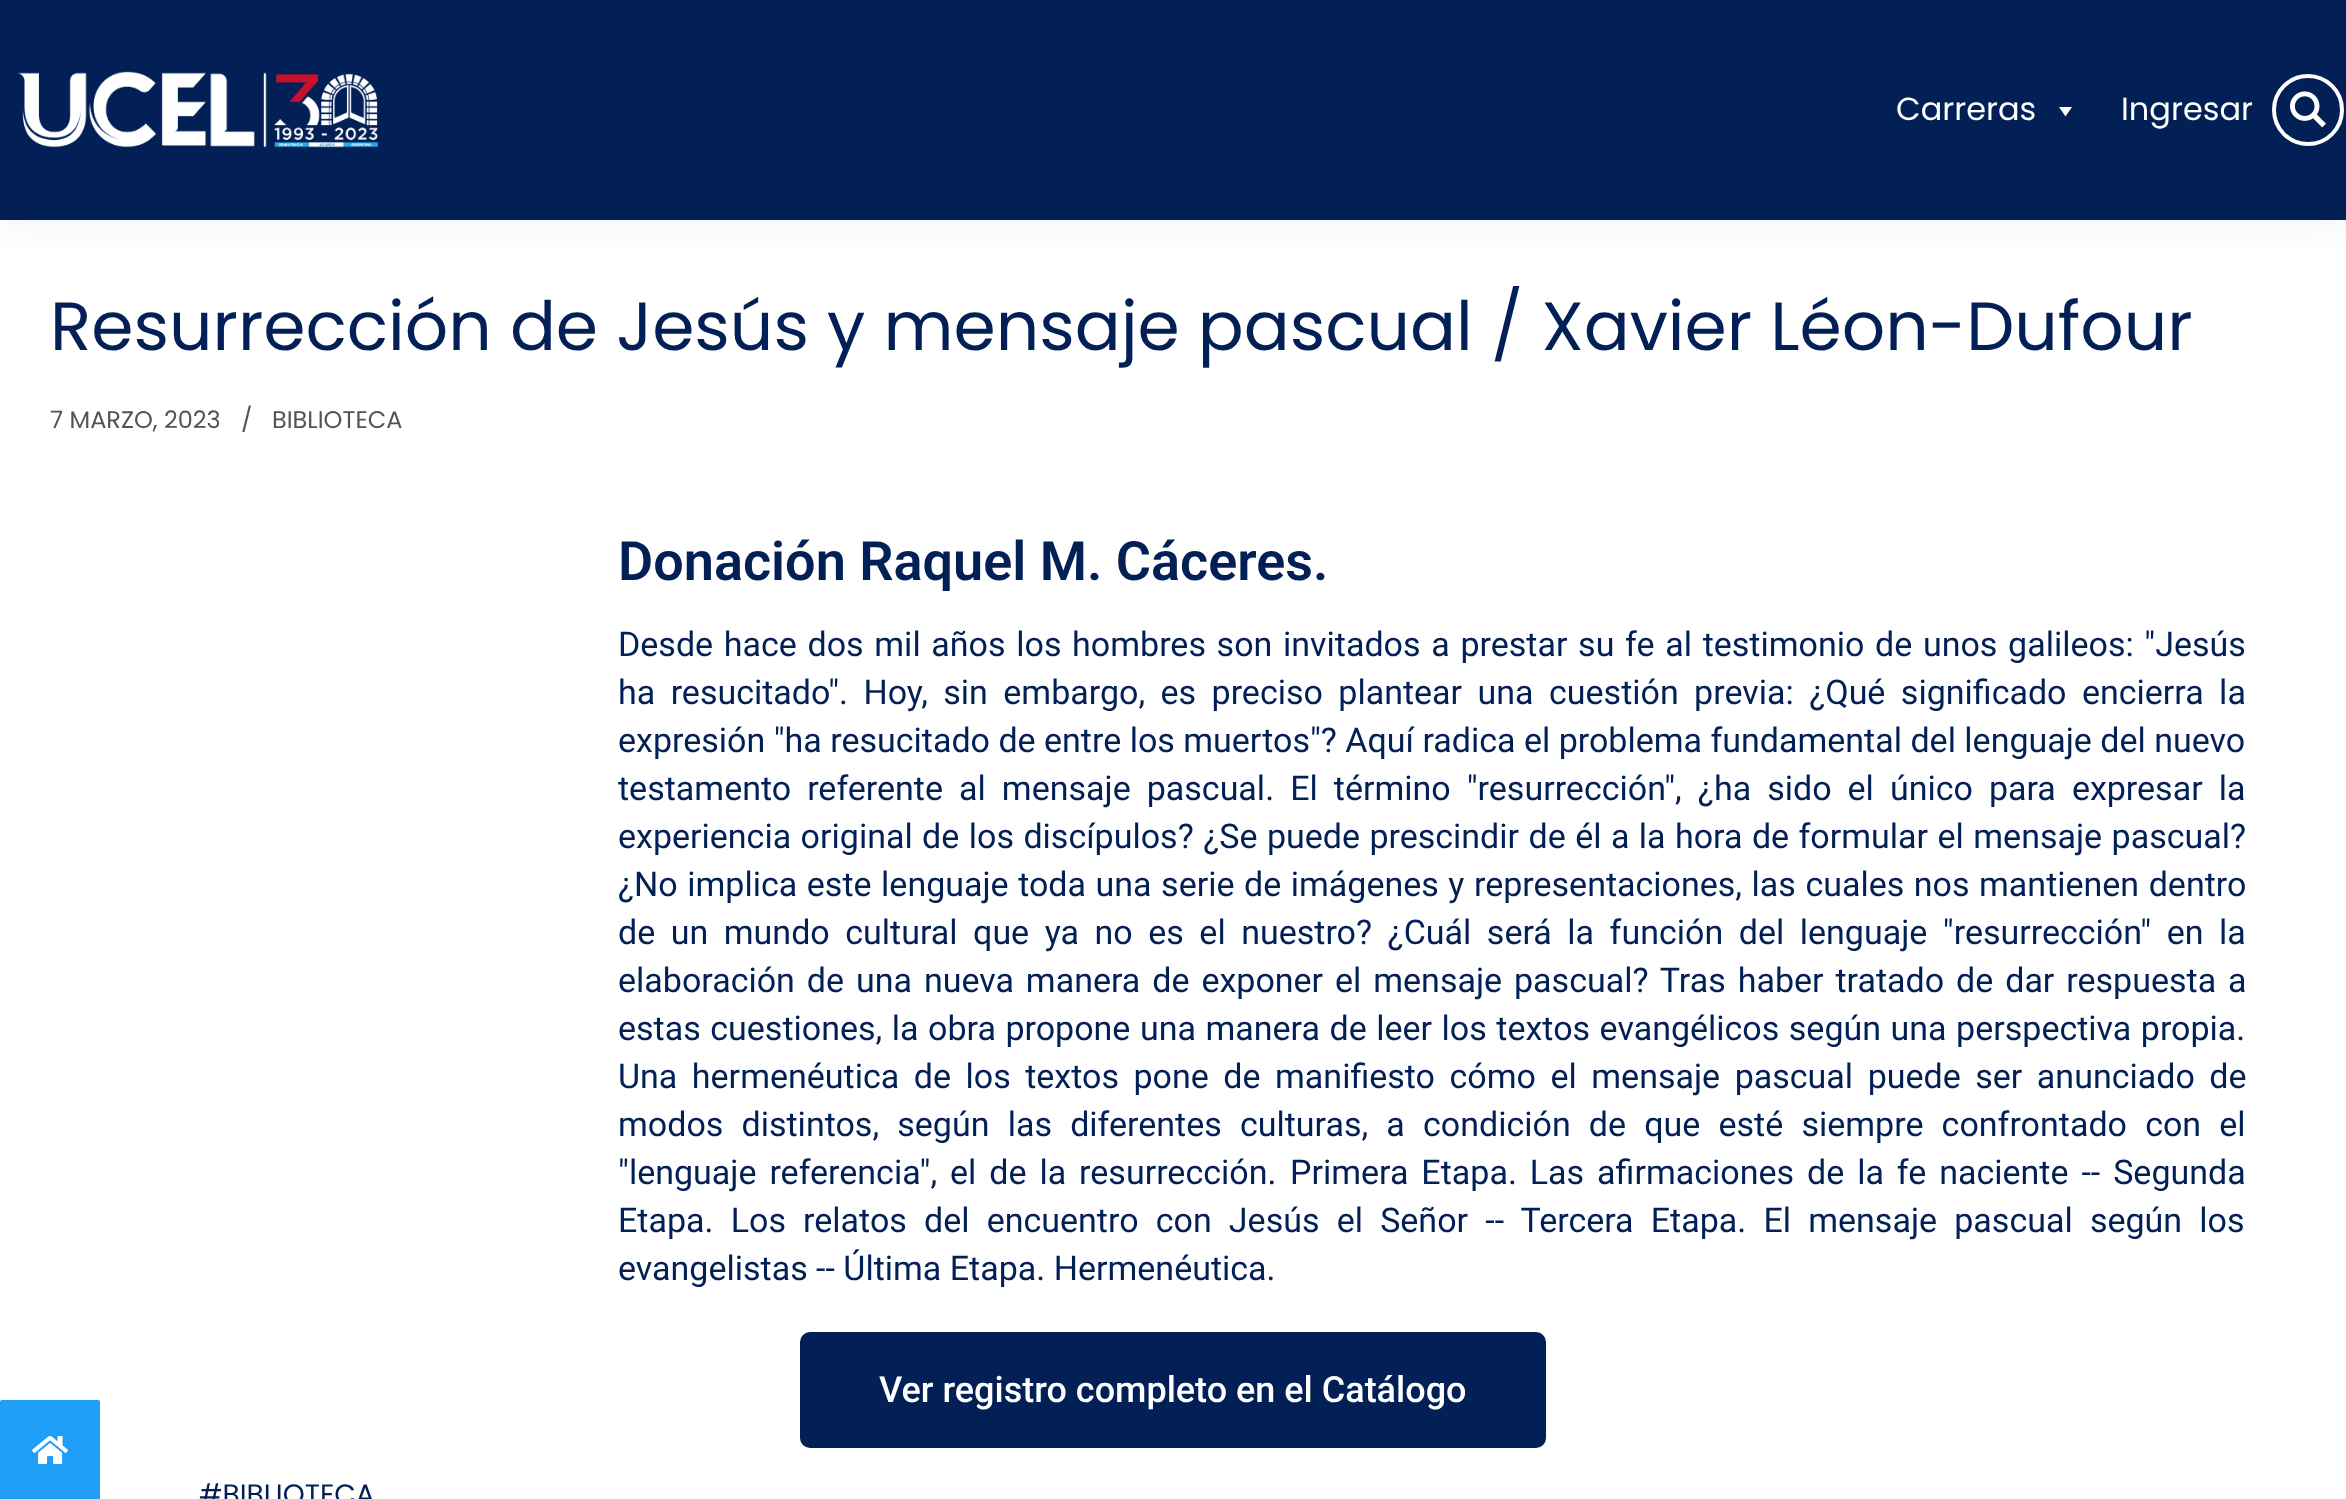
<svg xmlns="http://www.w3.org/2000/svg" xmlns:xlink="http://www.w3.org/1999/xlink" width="2346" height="1499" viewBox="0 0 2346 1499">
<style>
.cls-1{font:32px Poppins;fill:#ffffff}
.cls-2{font:68px Poppins;fill:#022056}
.cls-3{font:24px Poppins;fill:#545353}
.cls-4{font:600 54px Roboto;fill:#022056}
.cls-5{font:34px Roboto;fill:#022056}
.cls-6{font:500 36px Roboto;fill:#ffffff}
.cls-7{font:28px Poppins;fill:#022056}
</style>
<rect width="100%" height="100%" fill="#ffffff"/>
<rect fill="#9299b8" fill-opacity="0.1" filter="blur(15px)" x="0" y="10" width="2346" height="220"/>
<rect fill="#022056" x="0" y="0" width="2346" height="220"/>
<image xlink:href="image0.png" x="17" y="71" width="361" height="77"/>
<path fill="#ffffff" d="M2072 107L2065.5 116.5L2059 107Z"/>
<circle fill="none" stroke="#ffffff" stroke-width="4" cx="2308" cy="110" r="34"/>
<image xlink:href="image1.png" x="2290" y="91" width="36" height="37"/>
<rect fill="#022056" x="800" y="1332" width="746" height="116" rx="10"/>
<rect fill="#1f9ef8" x="0" y="1400" width="100" height="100" rx="2"/>
<image xlink:href="image2.png" x="32" y="1436" width="36" height="28"/>
<text class="cls-1" x="1896" y="120">Carreras</text>
<text class="cls-1" x="2121" y="120">Ingresar</text>
<text class="cls-2" x="50" y="350">Resurrección de Jesús y mensaje pascual / Xavier Léon-Dufour</text>
<text class="cls-3" x="50" y="428">7 MARZO, 2023</text>
<text class="cls-3" x="241" y="428">/</text>
<text class="cls-3" x="272" y="428">BIBLIOTECA</text>
<text class="cls-4" x="618" y="580">Donación Raquel M. Cáceres.</text>
<text class="cls-5"><tspan x="618" y="656" word-spacing="2.25">Desde hace dos mil años los hombres son invitados a prestar su fe al testimonio de unos galileos: "Jesús</tspan><tspan x="618" y="704" word-spacing="7">ha resucitado". Hoy, sin embargo, es preciso plantear una cuestión previa: ¿Qué significado encierra la</tspan><tspan x="618" y="752">expresión "ha resucitado de entre los muertos"? Aquí radica el problema fundamental del lenguaje del nuevo</tspan><tspan x="618" y="800" word-spacing="7.6">testamento referente al mensaje pascual. El término "resurrección", ¿ha sido el único para expresar la</tspan><tspan x="618" y="848" word-spacing="1">experiencia original de los discípulos? ¿Se puede prescindir de él a la hora de formular el mensaje pascual?</tspan><tspan x="618" y="896" word-spacing="1.1">¿No implica este lenguaje toda una serie de imágenes y representaciones, las cuales nos mantienen dentro</tspan><tspan x="618" y="944" word-spacing="7.1">de un mundo cultural que ya no es el nuestro? ¿Cuál será la función del lenguaje "resurrección" en la</tspan><tspan x="618" y="992" word-spacing="3.5">elaboración de una nueva manera de exponer el mensaje pascual? Tras haber tratado de dar respuesta a</tspan><tspan x="618" y="1040" word-spacing="1.1">estas cuestiones, la obra propone una manera de leer los textos evangélicos según una perspectiva propia.</tspan><tspan x="618" y="1088" word-spacing="6.1">Una hermenéutica de los textos pone de manifiesto cómo el mensaje pascual puede ser anunciado de</tspan><tspan x="618" y="1136" word-spacing="9.75">modos distintos, según las diferentes culturas, a condición de que esté siempre confrontado con el</tspan><tspan x="618" y="1184" word-spacing="4.5">"lenguaje referencia", el de la resurrección.</tspan></text>
<text class="cls-5" x="1290" y="1184" word-spacing="4.5">Primera Etapa. Las afirmaciones de la fe naciente -- Segunda</text>
<text class="cls-5"><tspan x="618" y="1232" word-spacing="8.75">Etapa. Los relatos del encuentro con Jesús el Señor -- Tercera Etapa. El mensaje pascual según los</tspan><tspan x="618" y="1280">evangelistas -- Última Etapa. Hermenéutica.</tspan></text>
<text class="cls-6" x="879" y="1402">Ver registro completo en el Catálogo</text>
<text class="cls-7" x="199" y="1504">#BIBLIOTECA</text>
</svg>
